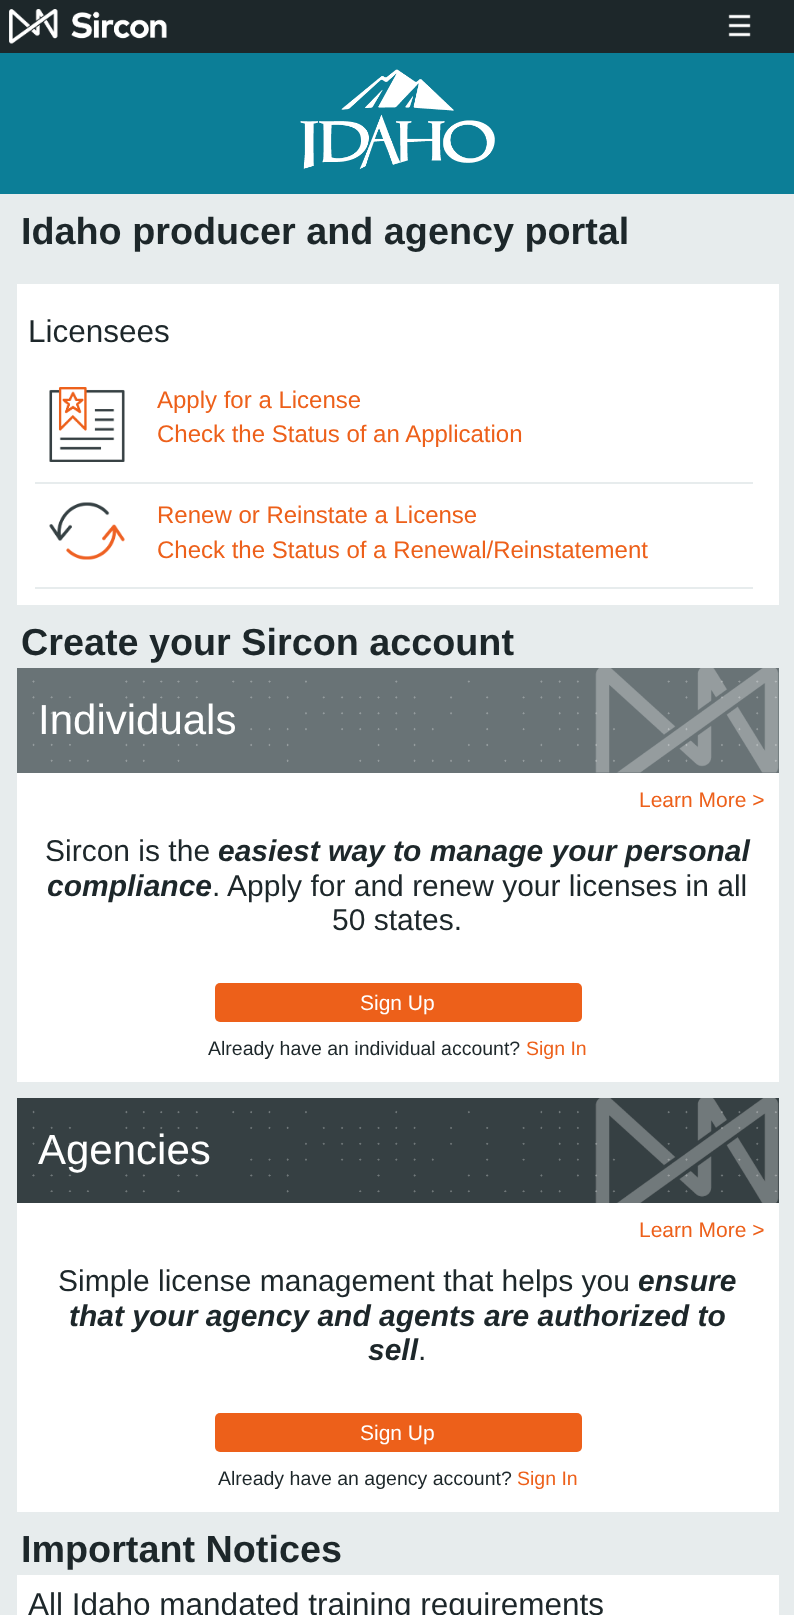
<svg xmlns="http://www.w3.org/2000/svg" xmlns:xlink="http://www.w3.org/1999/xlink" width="794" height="1615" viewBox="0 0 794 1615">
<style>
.cls-1{font:bold 37.75px Liberation Sans;fill:#1d272a}
.cls-2{font:31.5px Liberation Sans;fill:#1d272a}
.cls-3{font:24px Liberation Sans;fill:#ed601a}
.cls-4{font:42px Liberation Sans;fill:#ffffff}
.cls-5{font:21px Liberation Sans;fill:#ed601a}
.cls-6{font:30px Liberation Sans;fill:#1d272a}
.cls-7{font:italic bold 30px Liberation Sans;fill:#1d272a}
.cls-8{font:21px Liberation Sans;fill:#ffffff}
.cls-9{font:19.5px Liberation Sans;fill:#1d272a}
.cls-10{font:19.5px Liberation Sans;fill:#ed601a}
</style>
<rect width="100%" height="100%" fill="#e7eced"/>
<rect fill="#1d272a" x="0" y="0" width="794" height="53"/>
<image xlink:href="image0.png" x="9" y="9" width="158" height="35"/>
<image xlink:href="image1.png" x="728" y="14" width="23" height="23"/>
<rect fill="#0c7e97" x="0" y="53" width="794" height="141"/>
<image xlink:href="image2.png" x="300" y="69" width="195" height="101"/>
<rect fill="#ffffff" x="17" y="284" width="762" height="321"/>
<rect fill="#e7eced" x="35" y="482" width="718" height="2"/>
<image xlink:href="image3.png" x="49" y="387" width="76" height="75"/>
<rect fill="#e7eced" x="35" y="587" width="718" height="2"/>
<image xlink:href="image4.png" x="49" y="502" width="76" height="58"/>
<rect fill="#ffffff" x="17" y="773" width="762" height="309"/>
<rect fill="#697376" x="17" y="668" width="762" height="105"/>
<image xlink:href="image5.png" x="32" y="668" width="747" height="105"/>
<rect fill="#ed601a" x="215" y="983" width="367" height="39" rx="5"/>
<rect fill="#ffffff" x="17" y="1203" width="762" height="309"/>
<rect fill="#364043" x="17" y="1098" width="762" height="105"/>
<image xlink:href="image6.png" x="32" y="1098" width="747" height="105"/>
<rect fill="#ed601a" x="215" y="1413" width="367" height="39" rx="5"/>
<rect fill="#ffffff" x="17" y="1575" width="762" height="40"/>
<text class="cls-1" x="21" y="244">Idaho producer and agency portal</text>
<text class="cls-2" x="28" y="342">Licensees</text>
<text class="cls-3"><tspan x="157" y="408">Apply for a License</tspan><tspan x="157" y="442">Check the Status of an Application</tspan></text>
<text class="cls-3"><tspan x="157" y="523">Renew or Reinstate a License</tspan><tspan x="157" y="558">Check the Status of a Renewal/Reinstatement</tspan></text>
<text class="cls-1" x="21" y="655">Create your Sircon account</text>
<text class="cls-4" x="38" y="734">Individuals</text>
<text class="cls-5" x="639" y="807">Learn More &gt;</text>
<text class="cls-6" x="45" y="861">Sircon is the</text>
<text class="cls-7" x="218" y="861">easiest way to manage your personal</text>
<text class="cls-7" x="47" y="896">compliance</text>
<text class="cls-6" x="212" y="896">. Apply for and renew your licenses in all</text>
<text class="cls-6" x="332" y="930">50 states.</text>
<text class="cls-8" x="360" y="1010">Sign Up</text>
<text class="cls-9" x="208" y="1055">Already have an individual account?</text>
<text class="cls-10" x="526" y="1055">Sign In</text>
<text class="cls-4" x="38" y="1164">Agencies</text>
<text class="cls-5" x="639" y="1237">Learn More &gt;</text>
<text class="cls-6" x="58" y="1291">Simple license management that helps you</text>
<text class="cls-7" x="638" y="1291">ensure</text>
<text class="cls-7" x="69" y="1326">that your agency and agents are authorized to</text>
<text class="cls-7" x="368" y="1360">sell</text>
<text class="cls-6" x="418" y="1360">.</text>
<text class="cls-8" x="360" y="1440">Sign Up</text>
<text class="cls-9" x="218" y="1485">Already have an agency account?</text>
<text class="cls-10" x="517" y="1485">Sign In</text>
<text class="cls-1" x="21" y="1562">Important Notices</text>
<text class="cls-2" x="28" y="1615">All Idaho mandated training requirements</text>
</svg>
